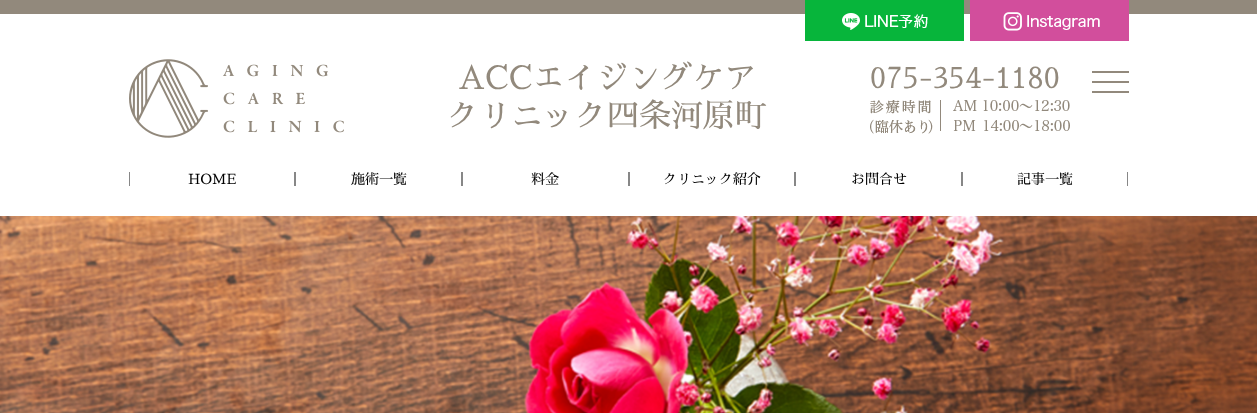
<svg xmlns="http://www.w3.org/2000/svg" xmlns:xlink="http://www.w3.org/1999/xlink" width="1257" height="413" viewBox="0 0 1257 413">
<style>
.cls-1{font:32px Sawarabi Mincho;fill:#92897c}
.cls-2{font:29px Sawarabi Mincho;fill:#92897c}
.cls-3{font:14px Sawarabi Mincho;fill:#000000}
</style>
<rect width="100%" height="100%" fill="#ffffff"/>
<rect fill="#92897c" x="0" y="0" width="1257" height="14"/>
<image xlink:href="image0.png" x="805" y="0" width="159" height="41"/>
<image xlink:href="image1.png" x="970" y="0" width="159" height="41"/>
<image xlink:href="image2.png" x="129" y="59" width="215" height="79"/>
<image xlink:href="image3.png" x="870" y="100" width="200" height="34"/>
<rect fill="#92897c" x="1092" y="81" width="37" height="2"/>
<rect fill="#92897c" x="1092" y="71" width="37" height="2"/>
<rect fill="#92897c" x="1092" y="91" width="37" height="2"/>
<rect fill="#878787" x="129" y="172" width="1" height="14"/>
<rect fill="#878787" x="294" y="172" width="2" height="14"/>
<rect fill="#878787" x="461" y="172" width="2" height="14"/>
<rect fill="#878787" x="628" y="172" width="2" height="14"/>
<rect fill="#878787" x="794" y="172" width="2" height="14"/>
<rect fill="#878787" x="961" y="172" width="2" height="14"/>
<rect fill="#878787" x="1127" y="172" width="1" height="14"/>
<image xlink:href="image4.png" x="0" y="216" width="1257" height="197"/>
<text class="cls-1" x="458" y="89">ACCエイジングケア</text>
<text class="cls-1" x="447" y="127">クリニック四条河原町</text>
<text class="cls-2" x="870" y="88">075-354-1180</text>
<text class="cls-3" x="188" y="184">HOME</text>
<text class="cls-3" x="351" y="184">施術一覧</text>
<text class="cls-3" x="531" y="184">料金</text>
<text class="cls-3" x="663" y="184">クリニック紹介</text>
<text class="cls-3" x="851" y="184">お問合せ</text>
<text class="cls-3" x="1017" y="184">記事一覧</text>
</svg>
